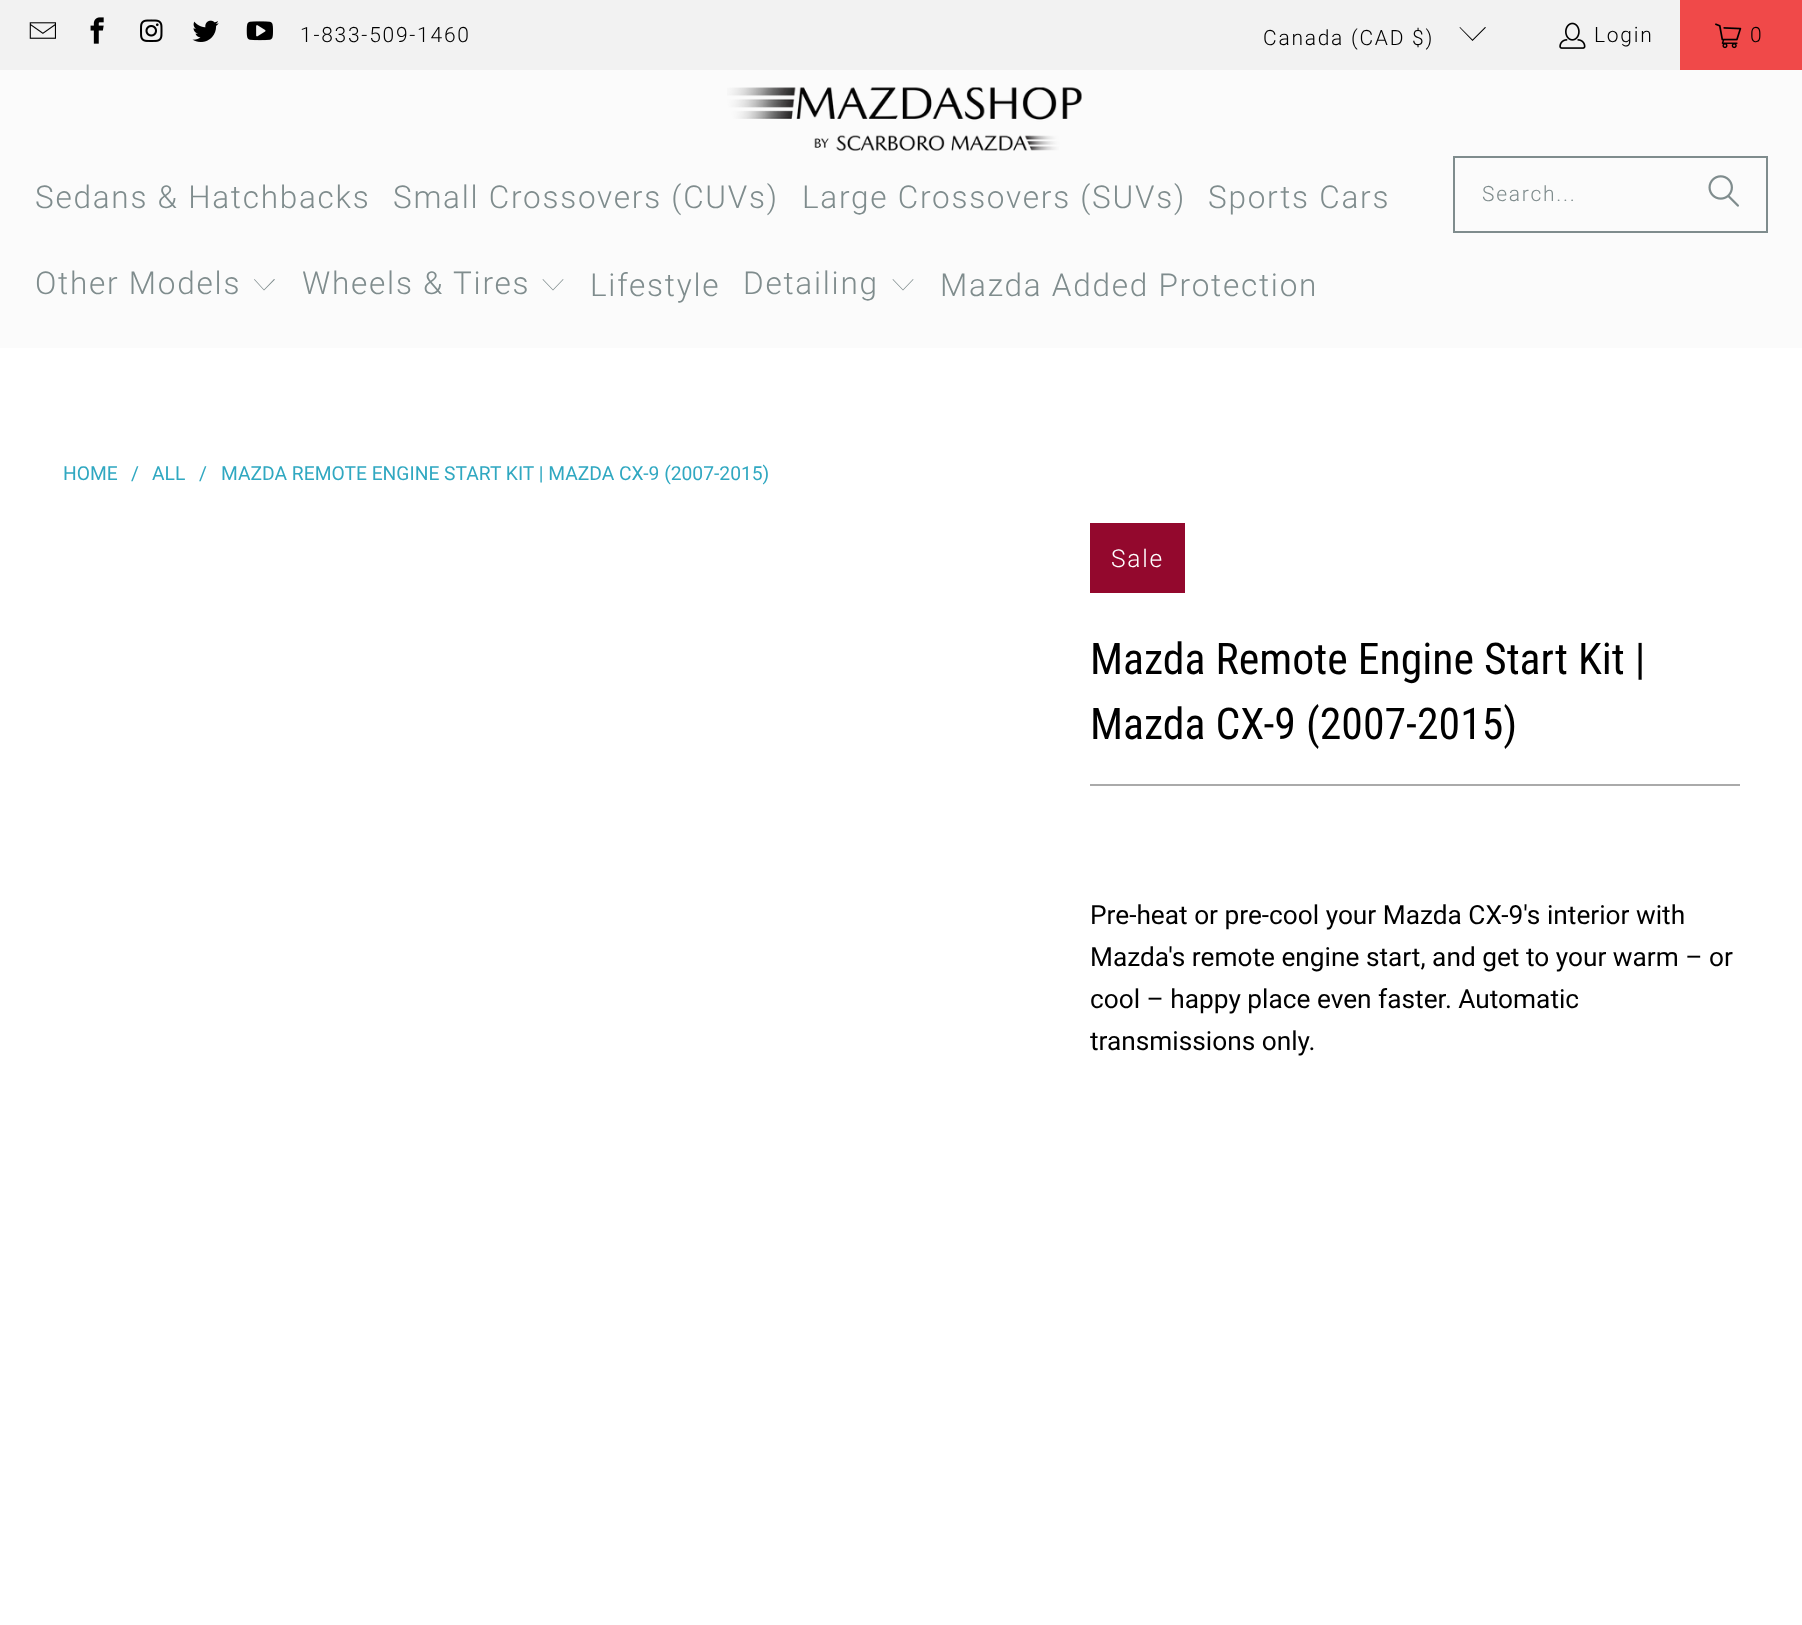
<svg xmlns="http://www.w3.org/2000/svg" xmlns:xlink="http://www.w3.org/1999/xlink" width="1802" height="1625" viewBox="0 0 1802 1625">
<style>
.cls-1{font:300 21px Roboto;letter-spacing:1.75px;fill:#000000}
.cls-2{font:300 31.5px Roboto;letter-spacing:1.75px;fill:#7f8c8d}
.cls-3{font:300 21px Roboto;letter-spacing:1.75px;fill:#7f8c8d}
.cls-4{font:19.25px Roboto;fill:#30a8c1}
.cls-5{font:300 24.5px Roboto;letter-spacing:1.75px;fill:#ffffff}
.cls-6{font:43.75px Roboto Condensed;fill:#000000}
.cls-7{font:26.25px Roboto;fill:#000000}
</style>
<rect width="100%" height="100%" fill="#ffffff"/>
<rect fill="#f2f2f2" x="0" y="0" width="1680" height="70"/>
<image xlink:href="image0.png" x="29" y="22" width="27" height="17"/>
<image xlink:href="image1.png" x="90" y="17" width="14" height="27"/>
<image xlink:href="image2.png" x="140" y="19" width="23" height="23"/>
<image xlink:href="image3.png" x="192" y="20" width="27" height="22"/>
<image xlink:href="image4.png" x="246" y="21" width="27" height="20"/>
<path fill="#000000" d="M1472.5 41L1459.5 27.5L1460 27L1472.5 39.5L1485 27L1486 27.5Z"/>
<image xlink:href="image5.png" x="1559" y="22" width="27" height="27"/>
<rect fill="#f04949" x="1680" y="0" width="122" height="70"/>
<image xlink:href="image6.png" x="1715" y="23" width="27" height="26"/>
<rect fill="#fbfbfb" x="0" y="70" width="1802" height="278"/>
<image xlink:href="image7.png" x="727" y="87" width="355" height="64"/>
<path fill="#7f8c8d" d="M264 290.5L254 279.5L254.5 279L264 289.5L274 279L275 279.5Z"/>
<path fill="#7f8c8d" d="M553 290.5L542.5 279.5L543 279L553 289.5L563 279L563.5 279.5Z"/>
<path fill="#7f8c8d" d="M903 290.5L892.5 279.5L893 279L903 289.5L913 279L913.5 279.5Z"/>
<rect fill="none" stroke="#7f8c8d" stroke-width="2" x="1454" y="157" width="313" height="75"/>
<image xlink:href="image8.png" x="1708" y="175" width="31" height="32"/>
<rect fill="#93082d" x="1090" y="523" width="95" height="70"/>
<rect fill="#aaaaaa" x="1090" y="784" width="650" height="2"/>
<text class="cls-1" x="300" y="42">1-833-509-1460</text>
<text class="cls-1" x="1263" y="45">Canada (CAD $)</text>
<text class="cls-1" x="1594" y="42">Login</text>
<text class="cls-1" x="1750" y="42">0</text>
<text class="cls-2" x="35" y="208">Sedans &amp; Hatchbacks</text>
<text class="cls-2" x="393" y="208">Small Crossovers (CUVs)</text>
<text class="cls-2" x="802" y="208">Large Crossovers (SUVs)</text>
<text class="cls-2" x="1208" y="208">Sports Cars</text>
<text class="cls-2" x="35" y="294">Other Models</text>
<text class="cls-2" x="302" y="294">Wheels &amp; Tires</text>
<text class="cls-2" x="590" y="296">Lifestyle</text>
<text class="cls-2" x="743" y="294">Detailing</text>
<text class="cls-2" x="940" y="296">Mazda Added Protection</text>
<text class="cls-3" x="1482" y="201">Search...</text>
<text class="cls-4" x="63" y="480">HOME</text>
<text class="cls-4" x="131" y="480">/</text>
<text class="cls-4" x="152" y="480">ALL</text>
<text class="cls-4" x="199" y="480">/</text>
<text class="cls-4" x="221" y="480">MAZDA REMOTE ENGINE START KIT | MAZDA CX-9 (2007-2015)</text>
<text class="cls-5" x="1111" y="567">Sale</text>
<text class="cls-6"><tspan x="1090" y="674">Mazda Remote Engine Start Kit |</tspan><tspan x="1090" y="739">Mazda CX-9 (2007-2015)</tspan></text>
<text class="cls-7"><tspan x="1090" y="924">Pre-heat or pre-cool your Mazda CX-9's interior with</tspan><tspan x="1090" y="966">Mazda's remote engine start, and get to your warm – or</tspan><tspan x="1090" y="1008">cool – happy place even faster. Automatic</tspan><tspan x="1090" y="1050">transmissions only.</tspan></text>
</svg>
